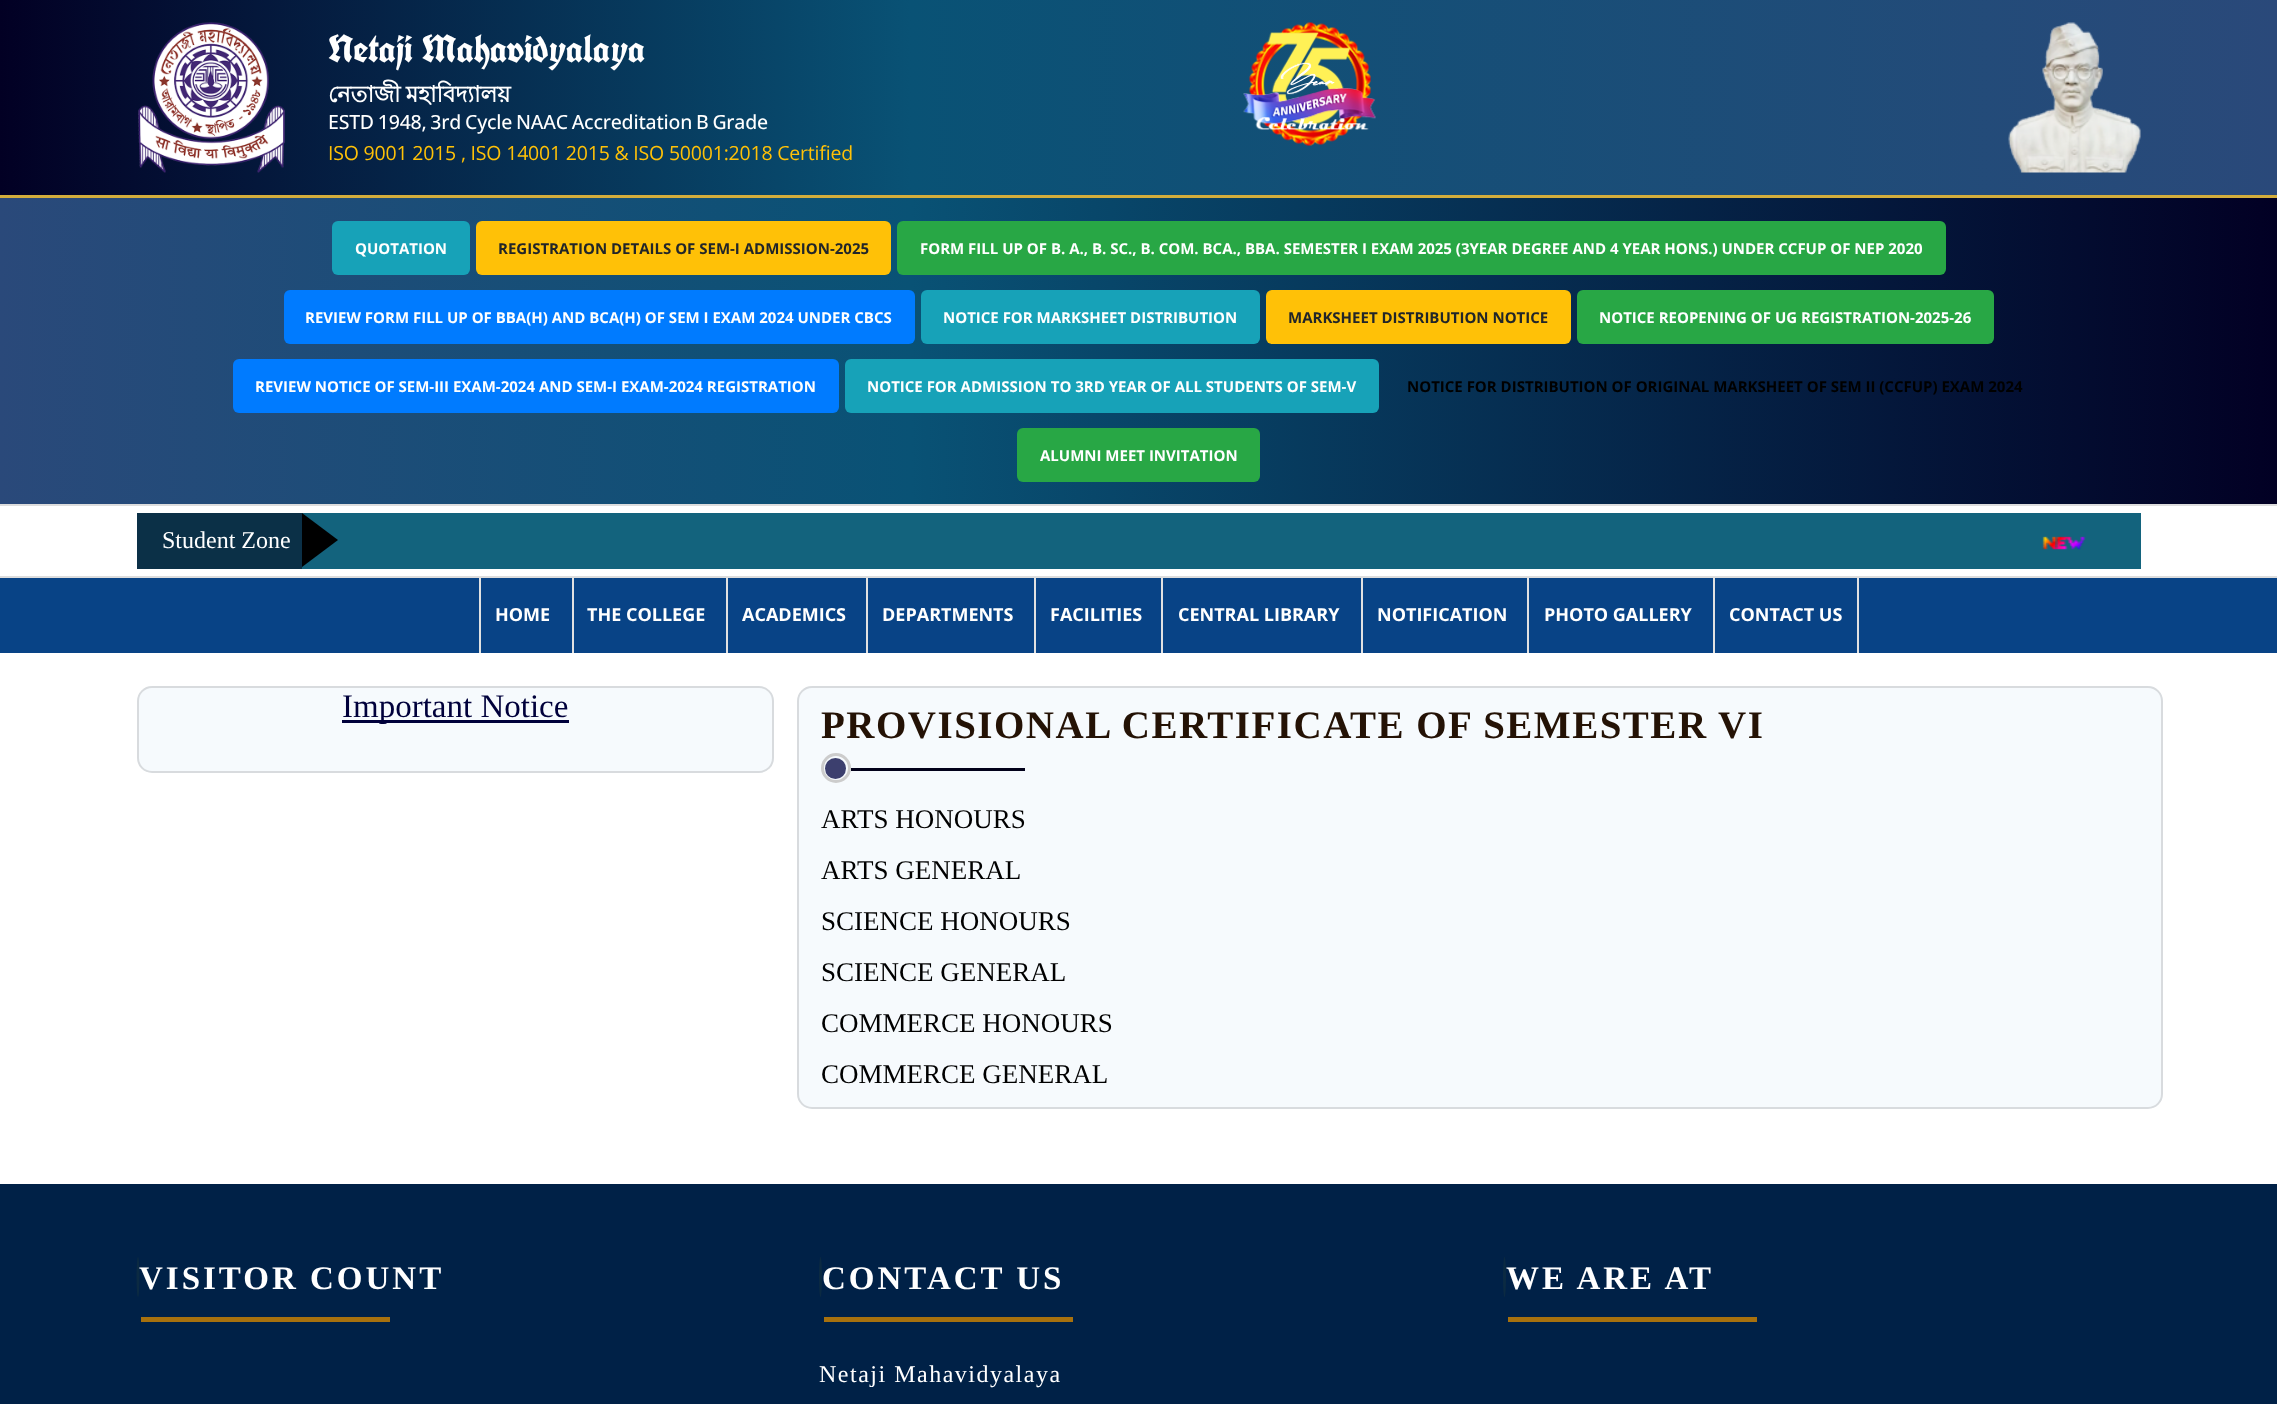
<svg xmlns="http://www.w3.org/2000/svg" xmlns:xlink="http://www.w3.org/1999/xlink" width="2277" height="1404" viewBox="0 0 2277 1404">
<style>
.cls-1{font:bold 38.5px UnifrakturCook;letter-spacing:-0.4px;fill:#ffffff}
.cls-2{font:bold 22.5px Lohit Bengali;fill:#ffffff}
.cls-3{font:500 19.5px Open Sans;letter-spacing:-0.2px;fill:#ffffff}
.cls-4{font:19.5px Open Sans;letter-spacing:-0.2px;fill:#ffc107}
.cls-5{font:bold 15px Open Sans;fill:#ffffff}
.cls-6{font:bold 15px Open Sans;fill:#212529}
.cls-7{font:bold 15px Open Sans;fill:#000000}
.cls-8{font:24px Liberation Serif;fill:#ffffff}
.cls-9{font:bold 18px Open Sans;fill:#ffffff}
.cls-10{font:33px Liberation Serif;fill:#00003b}
.cls-11{font:bold 39px Liberation Serif;letter-spacing:1.5px;fill:#241205}
.cls-12{font:27px Liberation Serif;fill:#000000}
.cls-13{font:bold 33px Liberation Serif;letter-spacing:3px;fill:#ffffff}
.cls-14{font:24px Liberation Serif;letter-spacing:1.5px;fill:#ffffff}
</style>
<defs>
<linearGradient id="g1" gradientUnits="userSpaceOnUse" x1="0" y1="98" x2="2277" y2="97"><stop offset="0" stop-color="#020024"/><stop offset="0.4" stop-color="#095275"/><stop offset="1" stop-color="#2a497a"/></linearGradient>
<linearGradient id="g2" gradientUnits="userSpaceOnUse" x1="0" y1="351" x2="2277" y2="351"><stop offset="0" stop-color="#2a497a"/><stop offset="0.4" stop-color="#095275"/><stop offset="1" stop-color="#020024"/></linearGradient>
</defs>
<rect width="100%" height="100%" fill="#ffffff"/>
<rect fill="url(#g1)" x="0" y="0" width="2277" height="195"/>
<image xlink:href="image0.png" x="138" y="22" width="147" height="151"/>
<image xlink:href="image1.png" x="1243" y="22" width="133" height="124"/>
<image xlink:href="image2.png" x="2008" y="22" width="133" height="151"/>
<rect fill="url(#g2)" x="0" y="198" width="2277" height="306"/>
<rect fill="#d3ad3c" x="0" y="195" width="2277" height="3"/>
<rect fill="#17a2b8" x="332" y="221" width="138" height="54" rx="6"/>
<rect fill="#ffc107" x="476" y="221" width="415" height="54" rx="6"/>
<rect fill="#28a745" x="897" y="221" width="1049" height="54" rx="6"/>
<rect fill="#007bff" x="284" y="290" width="631" height="54" rx="6"/>
<rect fill="#17a2b8" x="921" y="290" width="339" height="54" rx="6"/>
<rect fill="#ffc107" x="1266" y="290" width="305" height="54" rx="6"/>
<rect fill="#28a745" x="1577" y="290" width="417" height="54" rx="6"/>
<rect fill="#007bff" x="233" y="359" width="606" height="54" rx="6"/>
<rect fill="#17a2b8" x="845" y="359" width="534" height="54" rx="6"/>
<rect fill="#28a745" x="1017" y="428" width="243" height="54" rx="6"/>
<rect fill="#dddddd" x="0" y="504" width="2277" height="2"/>
<rect fill="#dddddd" x="0" y="576" width="2277" height="2"/>
<rect fill="#13637d" x="302" y="513" width="1839" height="56"/>
<rect fill="#0b3047" x="137" y="513" width="165" height="56"/>
<path fill="#000000" d="M302 567V513L338 540Z"/>
<image xlink:href="image3.png" x="2042" y="536" width="44" height="14"/>
<rect fill="#084386" x="0" y="578" width="2277" height="75"/>
<rect fill="#e1e1e1" x="479" y="578" width="2" height="75"/>
<rect fill="#e1e1e1" x="572" y="578" width="2" height="75"/>
<rect fill="#e1e1e1" x="726" y="578" width="2" height="75"/>
<rect fill="#e1e1e1" x="866" y="578" width="2" height="75"/>
<rect fill="#e1e1e1" x="1034" y="578" width="2" height="75"/>
<rect fill="#e1e1e1" x="1161" y="578" width="2" height="75"/>
<rect fill="#e1e1e1" x="1361" y="578" width="2" height="75"/>
<rect fill="#e1e1e1" x="1527" y="578" width="2" height="75"/>
<rect fill="#e1e1e1" x="1857" y="578" width="2" height="75"/>
<rect fill="#e1e1e1" x="1713" y="578" width="2" height="75"/>
<rect fill="#f6fafd" x="137" y="686" width="637" height="87" rx="15"/>
<rect fill="none" stroke="#000000" stroke-opacity="0.12" stroke-width="2" x="138" y="687" width="635" height="85" rx="14"/>
<rect fill="#00003b" x="342" y="720" width="227" height="3"/>
<rect fill="#f6fafd" x="797" y="686" width="1366" height="423" rx="15"/>
<rect fill="none" stroke="#000000" stroke-opacity="0.12" stroke-width="2" x="798" y="687" width="1364" height="421" rx="14"/>
<circle fill="none" stroke="#cccccc" stroke-width="3" cx="836" cy="768" r="13.5"/>
<circle fill="#3c3f6e" cx="835.5" cy="768.5" r="10.5"/>
<rect fill="#02011a" x="851" y="768" width="174" height="3"/>
<rect fill="#002147" x="0" y="1184" width="2277" height="220"/>
<ellipse fill="#0b2a42" cx="138" cy="1277" rx="1.5" ry="20"/>
<rect fill="#a7710e" x="141" y="1317" width="249" height="5"/>
<ellipse fill="#0b2a42" cx="820.5" cy="1277" rx="1.5" ry="20"/>
<rect fill="#a7710e" x="824" y="1317" width="249" height="5"/>
<ellipse fill="#0b2a42" cx="1504.5" cy="1277" rx="1.5" ry="20"/>
<rect fill="#a7710e" x="1508" y="1317" width="249" height="5"/>
<text class="cls-1" x="328" y="63">Netaji Mahavidyalaya</text>
<text class="cls-2" x="328" y="102" word-spacing="-1">নেতাজী মহাবিদ্যালয়</text>
<text class="cls-3" x="328" y="129" word-spacing="-1">ESTD 1948, 3rd Cycle NAAC Accreditation B Grade</text>
<text class="cls-4" x="328" y="160">ISO 9001 2015 , ISO 14001 2015 &amp; ISO 50001:2018 Certified</text>
<text class="cls-5" x="355" y="254">QUOTATION</text>
<text class="cls-6" x="498" y="254">REGISTRATION DETAILS OF SEM-I ADMISSION-2025</text>
<text class="cls-5" x="920" y="254">FORM FILL UP OF B. A., B. SC., B. COM. BCA., BBA. SEMESTER I EXAM 2025 (3YEAR DEGREE AND 4 YEAR HONS.) UNDER CCFUP OF NEP 2020</text>
<text class="cls-5" x="305" y="323">REVIEW FORM FILL UP OF BBA(H) AND BCA(H) OF SEM I EXAM 2024 UNDER CBCS</text>
<text class="cls-5" x="943" y="323">NOTICE FOR MARKSHEET DISTRIBUTION</text>
<text class="cls-6" x="1288" y="323">MARKSHEET DISTRIBUTION NOTICE</text>
<text class="cls-5" x="1599" y="323">NOTICE REOPENING OF UG REGISTRATION-2025-26</text>
<text class="cls-5" x="255" y="392">REVIEW NOTICE OF SEM-III EXAM-2024 AND SEM-I EXAM-2024 REGISTRATION</text>
<text class="cls-5" x="867" y="392">NOTICE FOR ADMISSION TO 3RD YEAR OF ALL STUDENTS OF SEM-V</text>
<text class="cls-7" x="1407" y="392">NOTICE FOR DISTRIBUTION OF ORIGINAL MARKSHEET OF SEM II (CCFUP) EXAM 2024</text>
<text class="cls-5" x="1040" y="461">ALUMNI MEET INVITATION</text>
<text class="cls-8" x="162" y="548">Student Zone</text>
<text class="cls-9" x="495" y="621">HOME</text>
<text class="cls-9" x="587" y="621">THE COLLEGE</text>
<text class="cls-9" x="742" y="621">ACADEMICS</text>
<text class="cls-9" x="882" y="621">DEPARTMENTS</text>
<text class="cls-9" x="1050" y="621">FACILITIES</text>
<text class="cls-9" x="1178" y="621">CENTRAL LIBRARY</text>
<text class="cls-9" x="1377" y="621">NOTIFICATION</text>
<text class="cls-9" x="1544" y="621">PHOTO GALLERY</text>
<text class="cls-9" x="1729" y="621">CONTACT US</text>
<text class="cls-10" x="342" y="717">Important Notice</text>
<text class="cls-11" x="821" y="738">PROVISIONAL CERTIFICATE OF SEMESTER VI</text>
<text class="cls-12"><tspan x="821" y="828">ARTS HONOURS</tspan><tspan x="821" y="879">ARTS GENERAL</tspan><tspan x="821" y="930">SCIENCE HONOURS</tspan><tspan x="821" y="981">SCIENCE GENERAL</tspan><tspan x="821" y="1032">COMMERCE HONOURS</tspan><tspan x="821" y="1083">COMMERCE GENERAL</tspan></text>
<text class="cls-13" x="139" y="1289">VISITOR COUNT</text>
<text class="cls-13" x="822" y="1289">CONTACT US</text>
<text class="cls-14" x="819" y="1382">Netaji Mahavidyalaya</text>
<text class="cls-13" x="1506" y="1289">WE ARE AT</text>
</svg>
